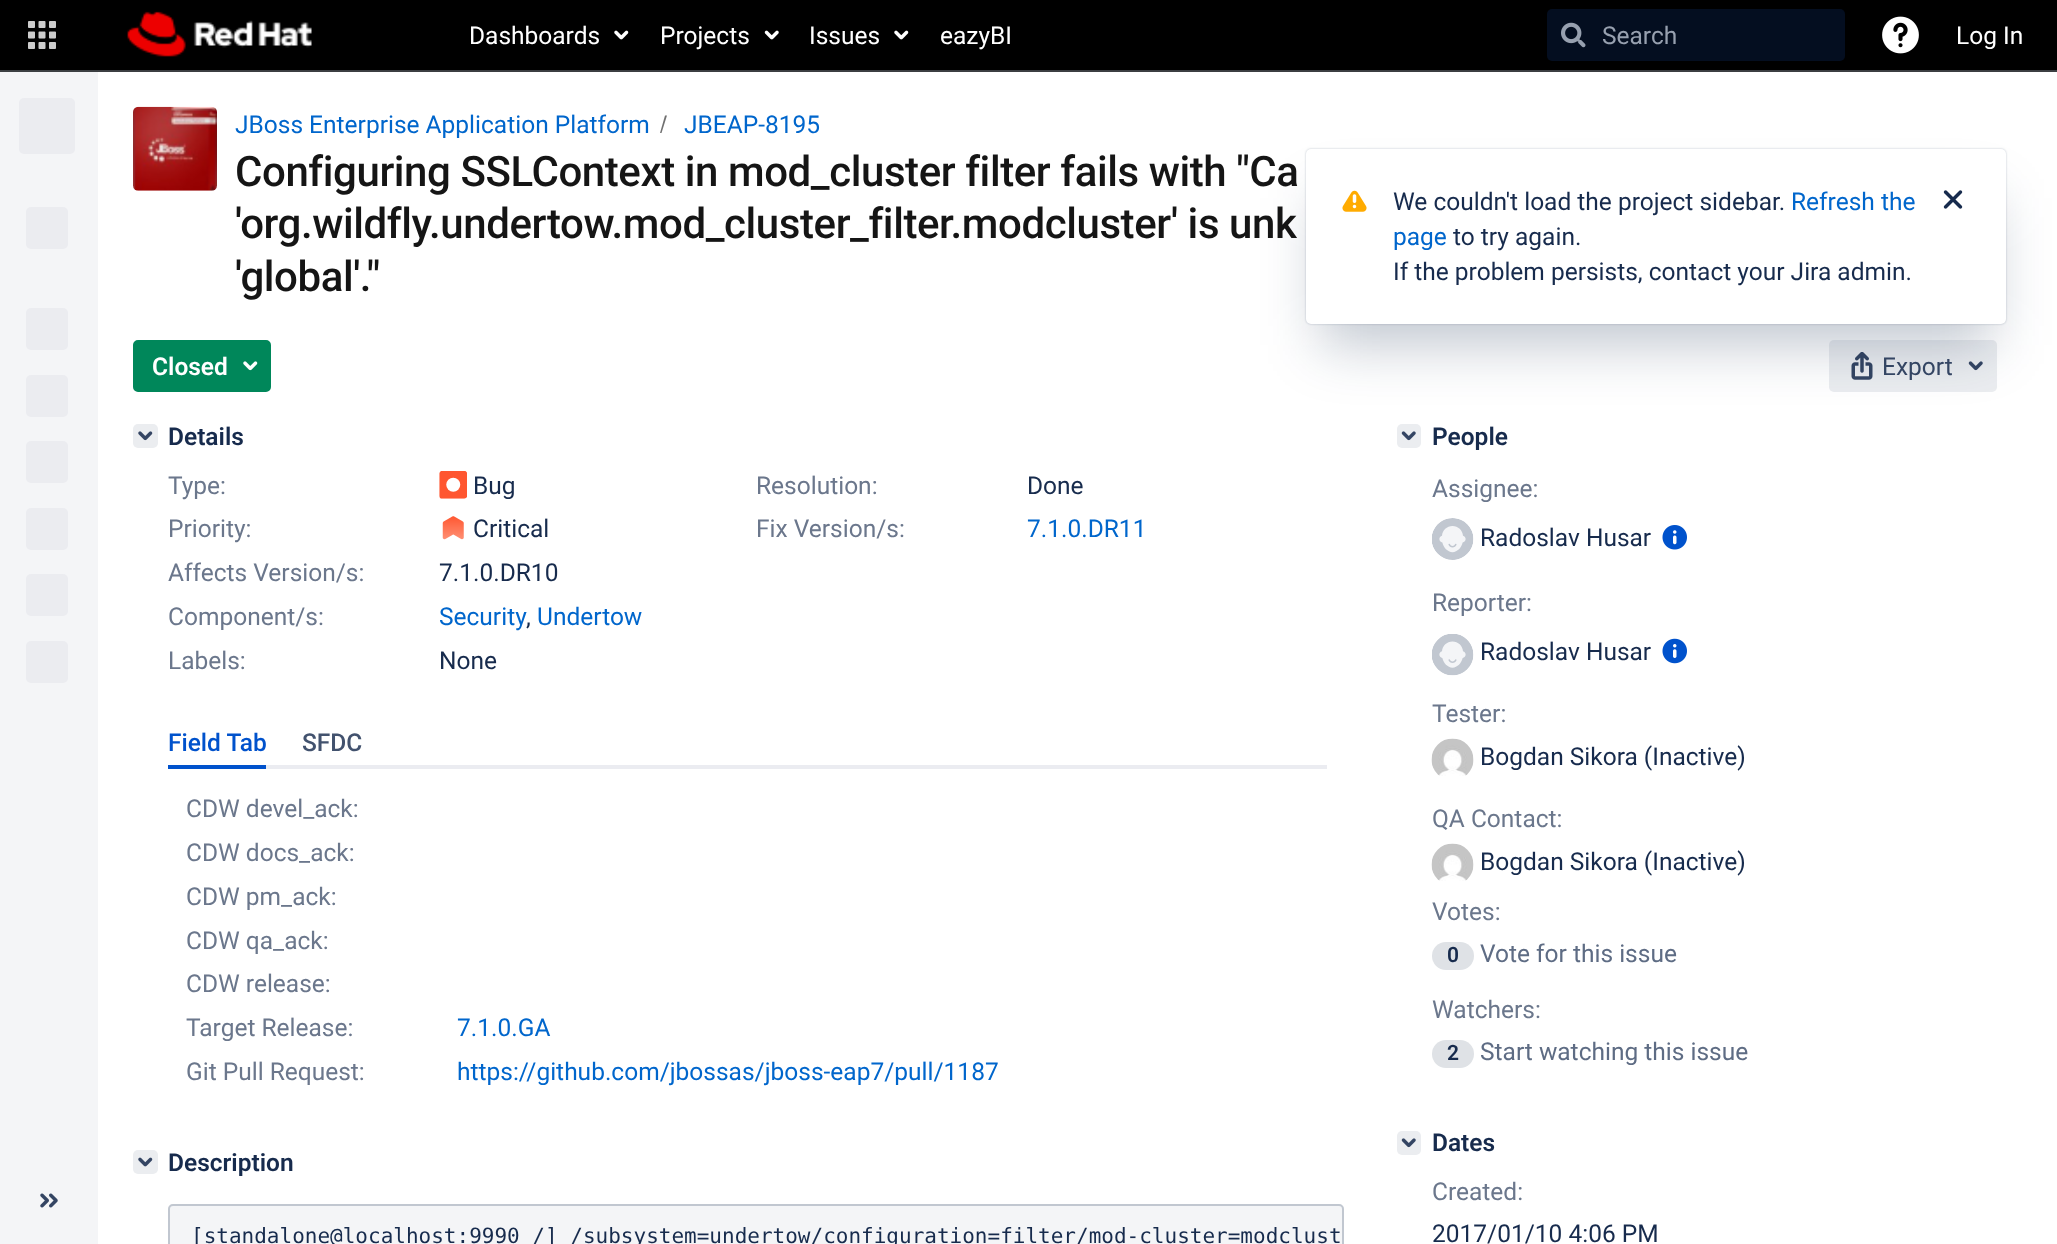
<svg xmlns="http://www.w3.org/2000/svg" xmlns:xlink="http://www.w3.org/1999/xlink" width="2057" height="1244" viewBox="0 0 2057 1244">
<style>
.cls-1{font:24.5px Roboto;fill:#ffffff}
.cls-2{font:24.5px Roboto;fill:#97a0af}
.cls-3{font:24.5px Roboto;fill:#0066cc}
.cls-4{font:500 42px Roboto;letter-spacing:-0.42px;fill:#151515}
.cls-5{font:600 24.5px Roboto;fill:#ffffff}
.cls-6{font:24.5px Roboto;fill:#344563}
.cls-7{font:600 24.5px Roboto;fill:#172b4d}
.cls-8{font:24.5px Roboto;fill:#6b778c}
.cls-9{font:24.5px Roboto;fill:#172b4d}
.cls-10{font:500 24.5px Roboto;fill:#0052cc}
.cls-11{font:500 24.5px Roboto;fill:#42526e}
.cls-12{font:21px DejaVu Sans Mono;fill:#172b4d}
.cls-13{font:600 21px Roboto;fill:#172b4d}
.cls-14{font:24.5px Roboto;fill:#5e6c84}
</style>
<rect width="100%" height="100%" fill="#ffffff"/>
<rect fill="#000000" x="0" y="0" width="2057" height="70"/>
<rect fill="#3c3f42" x="0" y="70" width="2057" height="2"/>
<image xlink:href="image0.png" x="28" y="21" width="28" height="28"/>
<image xlink:href="image1.png" x="127" y="11" width="185" height="46"/>
<image xlink:href="image2.png" x="614" y="30" width="15" height="10"/>
<image xlink:href="image3.png" x="764" y="30" width="15" height="10"/>
<image xlink:href="image2.png" x="894" y="30" width="15" height="10"/>
<rect fill="#040e20" x="1547" y="9" width="298" height="52" rx="5"/>
<image xlink:href="image4.png" x="1561" y="22" width="25" height="26"/>
<image xlink:href="image5.png" x="1882" y="16" width="37" height="38"/>
<rect fill="#f4f5f7" x="0" y="72" width="98" height="1172"/>
<rect fill="#ebecf0" x="19" y="98" width="56" height="56" rx="5"/>
<rect fill="#ebecf0" x="26" y="207" width="42" height="42" rx="5"/>
<rect fill="#ebecf0" x="26" y="308" width="42" height="42" rx="5"/>
<rect fill="#ebecf0" x="26" y="375" width="42" height="42" rx="5"/>
<rect fill="#ebecf0" x="26" y="441" width="42" height="42" rx="5"/>
<rect fill="#ebecf0" x="26" y="508" width="42" height="42" rx="5"/>
<rect fill="#ebecf0" x="26" y="574" width="42" height="42" rx="5"/>
<rect fill="#ebecf0" x="26" y="641" width="42" height="42" rx="5"/>
<image xlink:href="image6.png" x="40" y="1193" width="18" height="15"/>
<image xlink:href="image7.png" x="133" y="106" width="84" height="85"/>
<path fill="#707070" d="M661.5 133L667 115.5H665L660 133Z"/>
<rect fill="#00875a" stroke="#00875a" stroke-width="2" x="134" y="341" width="136" height="50" rx="4"/>
<image xlink:href="image8.png" x="243" y="361" width="15" height="10"/>
<rect fill="#ebedf0" x="1829" y="340" width="168" height="52" rx="5"/>
<image xlink:href="image9.png" x="1851" y="352" width="22" height="28"/>
<image xlink:href="image10.png" x="1968" y="361" width="15" height="10"/>
<rect fill="#ebedf0" x="133" y="424" width="25" height="24" rx="5"/>
<image xlink:href="image11.png" x="138" y="431" width="15" height="10"/>
<image xlink:href="image12.png" x="439" y="471" width="28" height="28"/>
<image xlink:href="image13.png" x="442" y="516" width="22" height="24"/>
<rect fill="#0052cc" x="168" y="765" width="98" height="4"/>
<rect fill="#ebecf1" x="266" y="765" width="1061" height="4"/>
<rect fill="#ebedf0" x="133" y="1150" width="25" height="24" rx="5"/>
<image xlink:href="image14.png" x="138" y="1157" width="15" height="10"/>
<path fill="#f4f5f7" d="M173 1204H1339C1342 1204 1344 1206 1344 1209V1244H168V1209C168 1206 170 1204 173 1204Z"/>
<rect fill="none" stroke="#c1c7d0" stroke-width="2" x="169" y="1205" width="1174" height="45" rx="4"/>
<rect fill="#ebedf0" x="1397" y="424" width="24" height="24" rx="5"/>
<image xlink:href="image15.png" x="1401" y="431" width="15" height="10"/>
<image xlink:href="image16.png" x="1432" y="518" width="42" height="42"/>
<image xlink:href="image17.png" x="1662" y="525" width="25" height="25"/>
<image xlink:href="image18.png" x="1432" y="634" width="42" height="42"/>
<image xlink:href="image19.png" x="1662" y="638" width="25" height="26"/>
<image xlink:href="image20.png" x="1431" y="738" width="43" height="38"/>
<image xlink:href="image21.png" x="1431" y="843" width="43" height="38"/>
<rect fill="#dfe2e6" x="1432" y="942" width="42" height="28" rx="14"/>
<rect fill="#dfe2e6" x="1432" y="1040" width="42" height="28" rx="14"/>
<rect fill="#ebedf0" x="1397" y="1131" width="24" height="24" rx="5"/>
<image xlink:href="image15.png" x="1401" y="1138" width="15" height="10"/>
<rect fill="#091e42" fill-opacity="0.25" filter="blur(1px)" x="1306" y="149" width="700" height="175" rx="5"/>
<rect fill="#091e42" fill-opacity="0.25" filter="blur(28px)" x="1320" y="198" width="672" height="147"/>
<rect fill="#ffffff" x="1306" y="149" width="700" height="175" rx="5"/>
<image xlink:href="image22.png" x="1342" y="190" width="25" height="22"/>
<image xlink:href="image23.png" x="1943" y="190" width="20" height="19"/>
<text class="cls-1" x="469" y="44">Dashboards</text>
<text class="cls-1" x="660" y="44">Projects</text>
<text class="cls-1" x="809" y="44">Issues</text>
<text class="cls-1" x="940" y="44">eazyBI</text>
<text class="cls-2" x="1602" y="44">Search</text>
<text class="cls-1" x="1956" y="44">Log In</text>
<text class="cls-3" x="235" y="133">JBoss Enterprise Application Platform</text>
<text class="cls-3" x="684" y="133">JBEAP-8195</text>
<text class="cls-4"><tspan x="235" y="186">Configuring SSLContext in mod_cluster filter fails with "Ca</tspan><tspan x="235" y="238">'org.wildfly.undertow.mod_cluster_filter.modcluster' is unk</tspan><tspan x="235" y="291">'global'."</tspan></text>
<text class="cls-5" x="152" y="375">Closed</text>
<text class="cls-6" x="1882" y="375">Export</text>
<text class="cls-7" x="168" y="445">Details</text>
<text class="cls-8" x="168" y="494">Type:</text>
<text class="cls-9" x="473" y="494">Bug</text>
<text class="cls-8" x="756" y="494">Resolution:</text>
<text class="cls-9" x="1027" y="494">Done</text>
<text class="cls-8" x="168" y="537">Priority:</text>
<text class="cls-9" x="473" y="537">Critical</text>
<text class="cls-8" x="756" y="537">Fix Version/s:</text>
<text class="cls-3" x="1027" y="537">7.1.0.DR11</text>
<text class="cls-8" x="168" y="581">Affects Version/s:</text>
<text class="cls-9" x="439" y="581">7.1.0.DR10</text>
<text class="cls-8" x="168" y="625">Component/s:</text>
<text class="cls-3" x="439" y="625">Security</text>
<text class="cls-9" x="526" y="625">,</text>
<text class="cls-3" x="537" y="625">Undertow</text>
<text class="cls-8" x="168" y="669">Labels:</text>
<text class="cls-9" x="439" y="669">None</text>
<text class="cls-10" x="168" y="751">Field Tab</text>
<text class="cls-11" x="302" y="751">SFDC</text>
<text class="cls-8"><tspan x="186" y="817">CDW devel_ack:</tspan><tspan x="186" y="861">CDW docs_ack:</tspan><tspan x="186" y="905">CDW pm_ack:</tspan><tspan x="186" y="949">CDW qa_ack:</tspan><tspan x="186" y="992">CDW release:</tspan><tspan x="186" y="1036">Target Release:</tspan></text>
<text class="cls-3" x="457" y="1036">7.1.0.GA</text>
<text class="cls-8" x="186" y="1080">Git Pull Request:</text>
<text class="cls-3" x="457" y="1080">https://github.com/jbossas/jboss-eap7/pull/1187</text>
<text class="cls-7" x="168" y="1171">Description</text>
<text class="cls-12" x="191" y="1243">[standalone@localhost:9990 /] /subsystem=undertow/configuration=filter/mod-cluster=modclust</text>
<text class="cls-7" x="1432" y="445">People</text>
<text class="cls-8" x="1432" y="497">Assignee:</text>
<text class="cls-9" x="1480" y="546">Radoslav Husar</text>
<text class="cls-8" x="1432" y="611">Reporter:</text>
<text class="cls-9" x="1480" y="660">Radoslav Husar</text>
<text class="cls-8" x="1432" y="722">Tester:</text>
<text class="cls-9" x="1480" y="765">Bogdan Sikora (Inactive)</text>
<text class="cls-8" x="1432" y="827">QA Contact:</text>
<text class="cls-9" x="1480" y="870">Bogdan Sikora (Inactive)</text>
<text class="cls-8" x="1432" y="920">Votes:</text>
<text class="cls-13" x="1447" y="962">0</text>
<text class="cls-14" x="1480" y="962">Vote for this issue</text>
<text class="cls-8" x="1432" y="1018">Watchers:</text>
<text class="cls-13" x="1447" y="1060">2</text>
<text class="cls-14" x="1480" y="1060">Start watching this issue</text>
<text class="cls-7" x="1432" y="1151">Dates</text>
<text class="cls-8" x="1432" y="1200">Created:</text>
<text class="cls-9" x="1432" y="1242">2017/01/10 4:06 PM</text>
<text class="cls-9" x="1393" y="210">We couldn't load the project sidebar.</text>
<text class="cls-3" x="1791" y="210">Refresh the</text>
<text class="cls-3" x="1393" y="245">page</text>
<text class="cls-9" x="1453" y="245">to try again.</text>
<text class="cls-9" x="1393" y="280">If the problem persists, contact your Jira admin.</text>
</svg>
